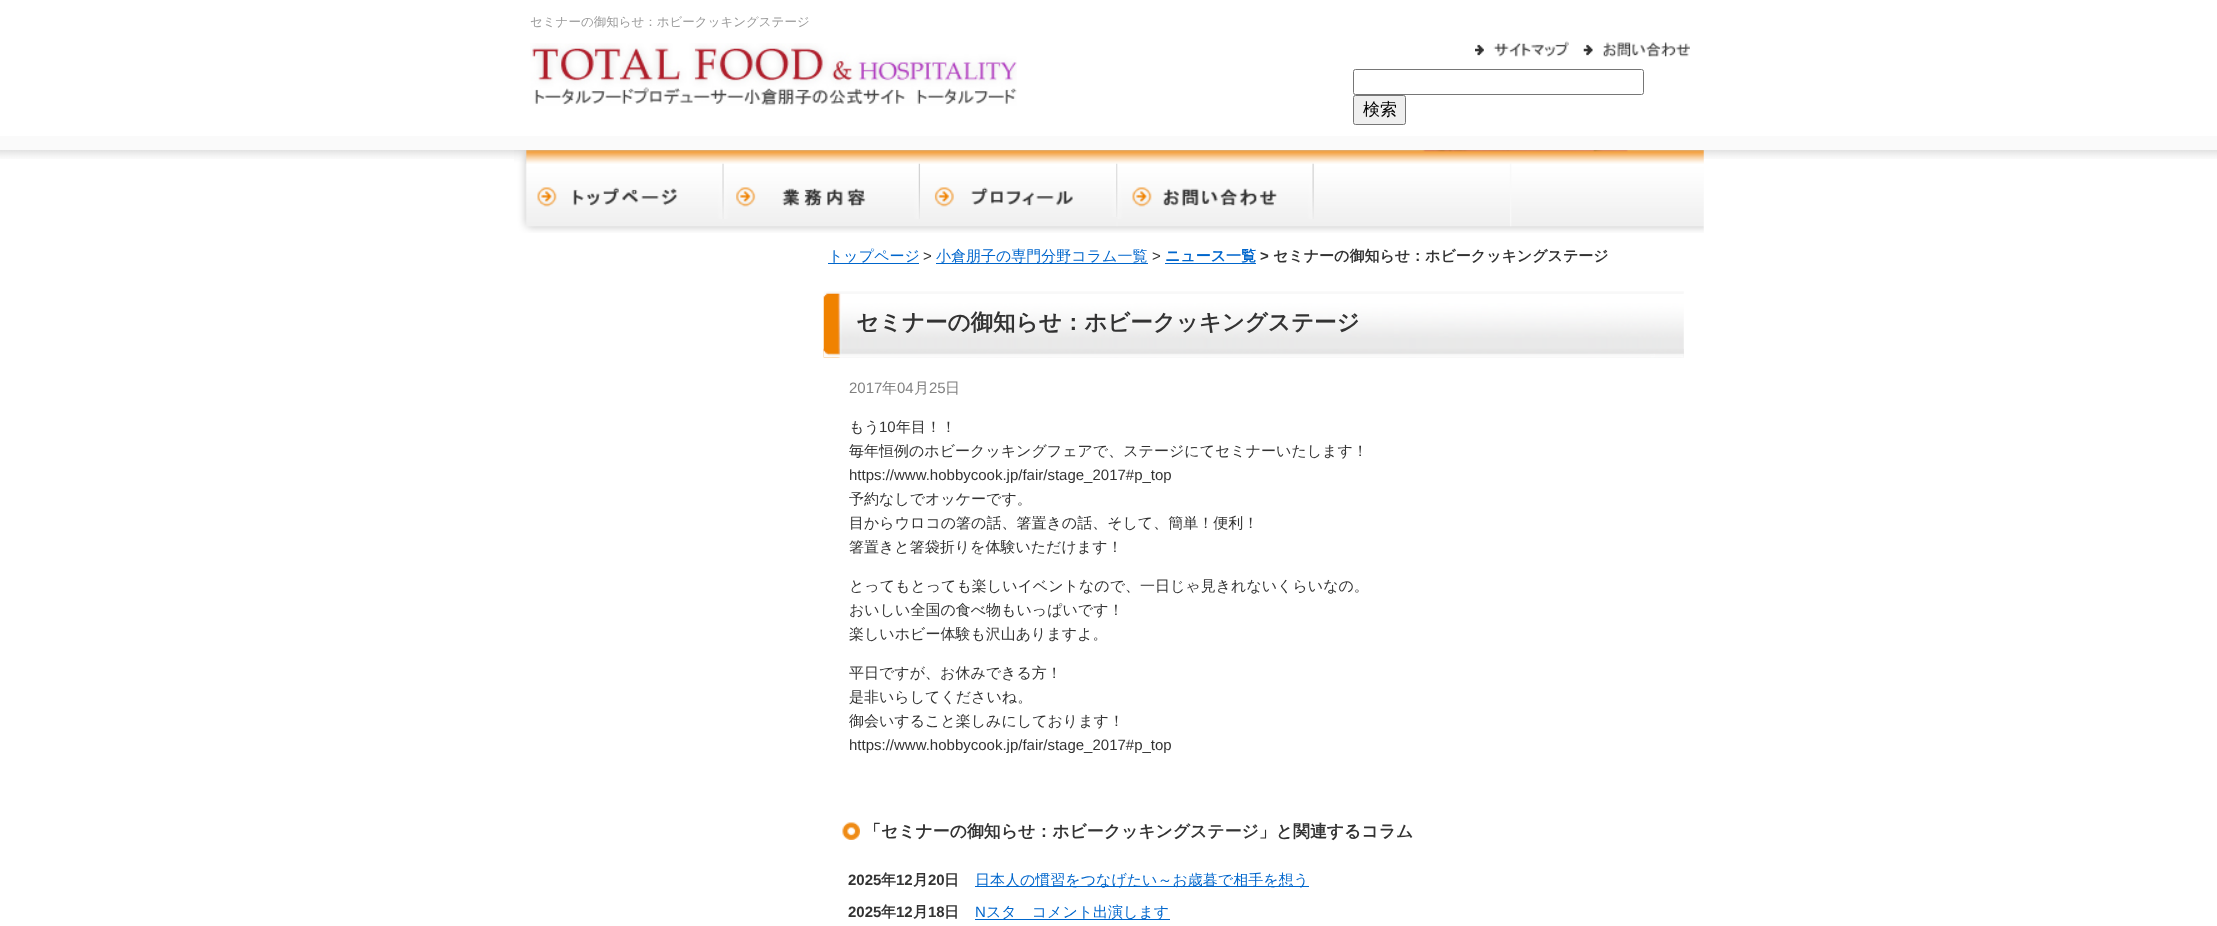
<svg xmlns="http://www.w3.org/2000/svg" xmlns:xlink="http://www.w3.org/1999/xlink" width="2217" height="926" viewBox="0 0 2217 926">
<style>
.cls-1{font:500 12.5px WenQuanYi Zen Hei;fill:#9b9b9b}
.cls-2{font:500 17px WenQuanYi Zen Hei;fill:#000000}
.cls-3{font:500 15px WenQuanYi Zen Hei;fill:#0066cc}
.cls-4{font:15px Liberation Sans;fill:#333333}
.cls-5{font:bold 15px WenQuanYi Zen Hei;fill:#0066cc}
.cls-6{font:bold 15px Liberation Sans;fill:#333333}
.cls-7{font:bold 15px WenQuanYi Zen Hei;fill:#333333}
.cls-8{font:bold 22.5px WenQuanYi Zen Hei;fill:#333333}
.cls-9{font:15px Liberation Sans;fill:#808080}
.cls-10{font:500 15px WenQuanYi Zen Hei;fill:#808080}
.cls-11{font:500 15px WenQuanYi Zen Hei;fill:#333333}
.cls-12{font:bold 16.9px WenQuanYi Zen Hei;fill:#333333}
.cls-13{font:15px Liberation Sans;fill:#0066cc}
</style>
<rect width="100%" height="100%" fill="#ffffff"/>
<rect fill="#fafafa" x="0" y="136" width="2217" height="14"/>
<image xlink:href="image0.png" x="530" y="43" width="487" height="63"/>
<image xlink:href="image1.png" x="1475" y="41" width="94" height="16"/>
<image xlink:href="image2.png" x="1583" y="42" width="107" height="15"/>
<rect fill="none" stroke="#767676" x="1353.5" y="69.5" width="290" height="25" rx="2"/>
<rect fill="#efefef" stroke="#767676" x="1353.5" y="95.5" width="52" height="29" rx="2"/>
<image xlink:href="image3.png" x="0" y="150" width="2217" height="9"/>
<image xlink:href="image4.png" x="514" y="150" width="1190" height="83"/>
<image xlink:href="image5.png" x="537" y="163" width="187" height="56"/>
<image xlink:href="image6.png" x="723" y="163" width="197" height="56"/>
<image xlink:href="image7.png" x="934" y="163" width="184" height="54"/>
<image xlink:href="image8.png" x="1117" y="163" width="197" height="56"/>
<rect fill="#0066cc" x="828" y="263" width="91" height="1"/>
<rect fill="#0066cc" x="936" y="263" width="212" height="1"/>
<rect fill="#0066cc" x="1165" y="263" width="91" height="1"/>
<image xlink:href="image9.png" x="823" y="291" width="861" height="67"/>
<image xlink:href="image10.png" x="823" y="348" width="861" height="10"/>
<image xlink:href="image11.png" x="842" y="822" width="18" height="18"/>
<rect fill="#0066cc" x="975" y="886" width="334" height="1"/>
<rect fill="#0066cc" x="975" y="919" width="195" height="1"/>
<text class="cls-1" x="530" y="26">セミナーの御知らせ：ホビークッキングステージ</text>
<text class="cls-2" x="1363" y="115">検索</text>
<text class="cls-3" x="828" y="261">トップページ</text>
<text class="cls-4" x="923" y="261">&gt;</text>
<text class="cls-3" x="936" y="261">小倉朋子の専門分野コラム一覧</text>
<text class="cls-4" x="1152" y="261">&gt;</text>
<text class="cls-5" x="1165" y="261">ニュース一覧</text>
<text class="cls-6" x="1260" y="261">&gt;</text>
<text class="cls-7" x="1273" y="261">セミナーの御知らせ：ホビークッキングステージ</text>
<text class="cls-8" x="856" y="330">セミナーの御知らせ：ホビークッキングステージ</text>
<text class="cls-9" x="849" y="393">2017</text>
<text class="cls-10" x="882" y="393">年</text>
<text class="cls-9" x="897" y="393">04</text>
<text class="cls-10" x="914" y="393">月</text>
<text class="cls-9" x="929" y="393">25</text>
<text class="cls-10" x="945" y="393">日</text>
<text class="cls-11" x="849" y="432">もう</text>
<text class="cls-4" x="879" y="432">10</text>
<text class="cls-11" x="896" y="432">年目！！</text>
<text class="cls-11" x="849" y="456">毎年恒例のホビークッキングフェアで、ステージにてセミナーいたします！</text>
<text class="cls-4" x="849" y="480">https://www.hobbycook.jp/fair/stage_2017#p_top</text>
<text class="cls-11"><tspan x="849" y="504">予約なしでオッケーです。</tspan><tspan x="849" y="528">目からウロコの箸の話、箸置きの話、そして、簡単！便利！</tspan><tspan x="849" y="552">箸置きと箸袋折りを体験いただけます！</tspan></text>
<text class="cls-11"><tspan x="849" y="591">とってもとっても楽しいイベントなので、一日じゃ見きれないくらいなの。</tspan><tspan x="849" y="615">おいしい全国の食べ物もいっぱいです！</tspan><tspan x="849" y="639">楽しいホビー体験も沢山ありますよ。</tspan></text>
<text class="cls-11"><tspan x="849" y="678">平日ですが、お休みできる方！</tspan><tspan x="849" y="702">是非いらしてくださいね。</tspan><tspan x="849" y="726">御会いすること楽しみにしております！</tspan></text>
<text class="cls-4" x="849" y="750">https://www.hobbycook.jp/fair/stage_2017#p_top</text>
<text class="cls-12" x="864" y="837">「セミナーの御知らせ：ホビークッキングステージ」と関連するコラム</text>
<text class="cls-6" x="848" y="885">2025</text>
<text class="cls-7" x="881" y="885">年</text>
<text class="cls-6" x="896" y="885">12</text>
<text class="cls-7" x="913" y="885">月</text>
<text class="cls-6" x="928" y="885">20</text>
<text class="cls-7" x="944" y="885">日</text>
<text class="cls-3" x="975" y="885">日本人の慣習をつなげたい～お歳暮で相手を想う</text>
<text class="cls-6" x="848" y="917">2025</text>
<text class="cls-7" x="881" y="917">年</text>
<text class="cls-6" x="896" y="917">12</text>
<text class="cls-7" x="913" y="917">月</text>
<text class="cls-6" x="928" y="917">18</text>
<text class="cls-7" x="944" y="917">日</text>
<text class="cls-13" x="975" y="917">N</text>
<text class="cls-3" x="986" y="917">スタ　コメント出演します</text>
</svg>
